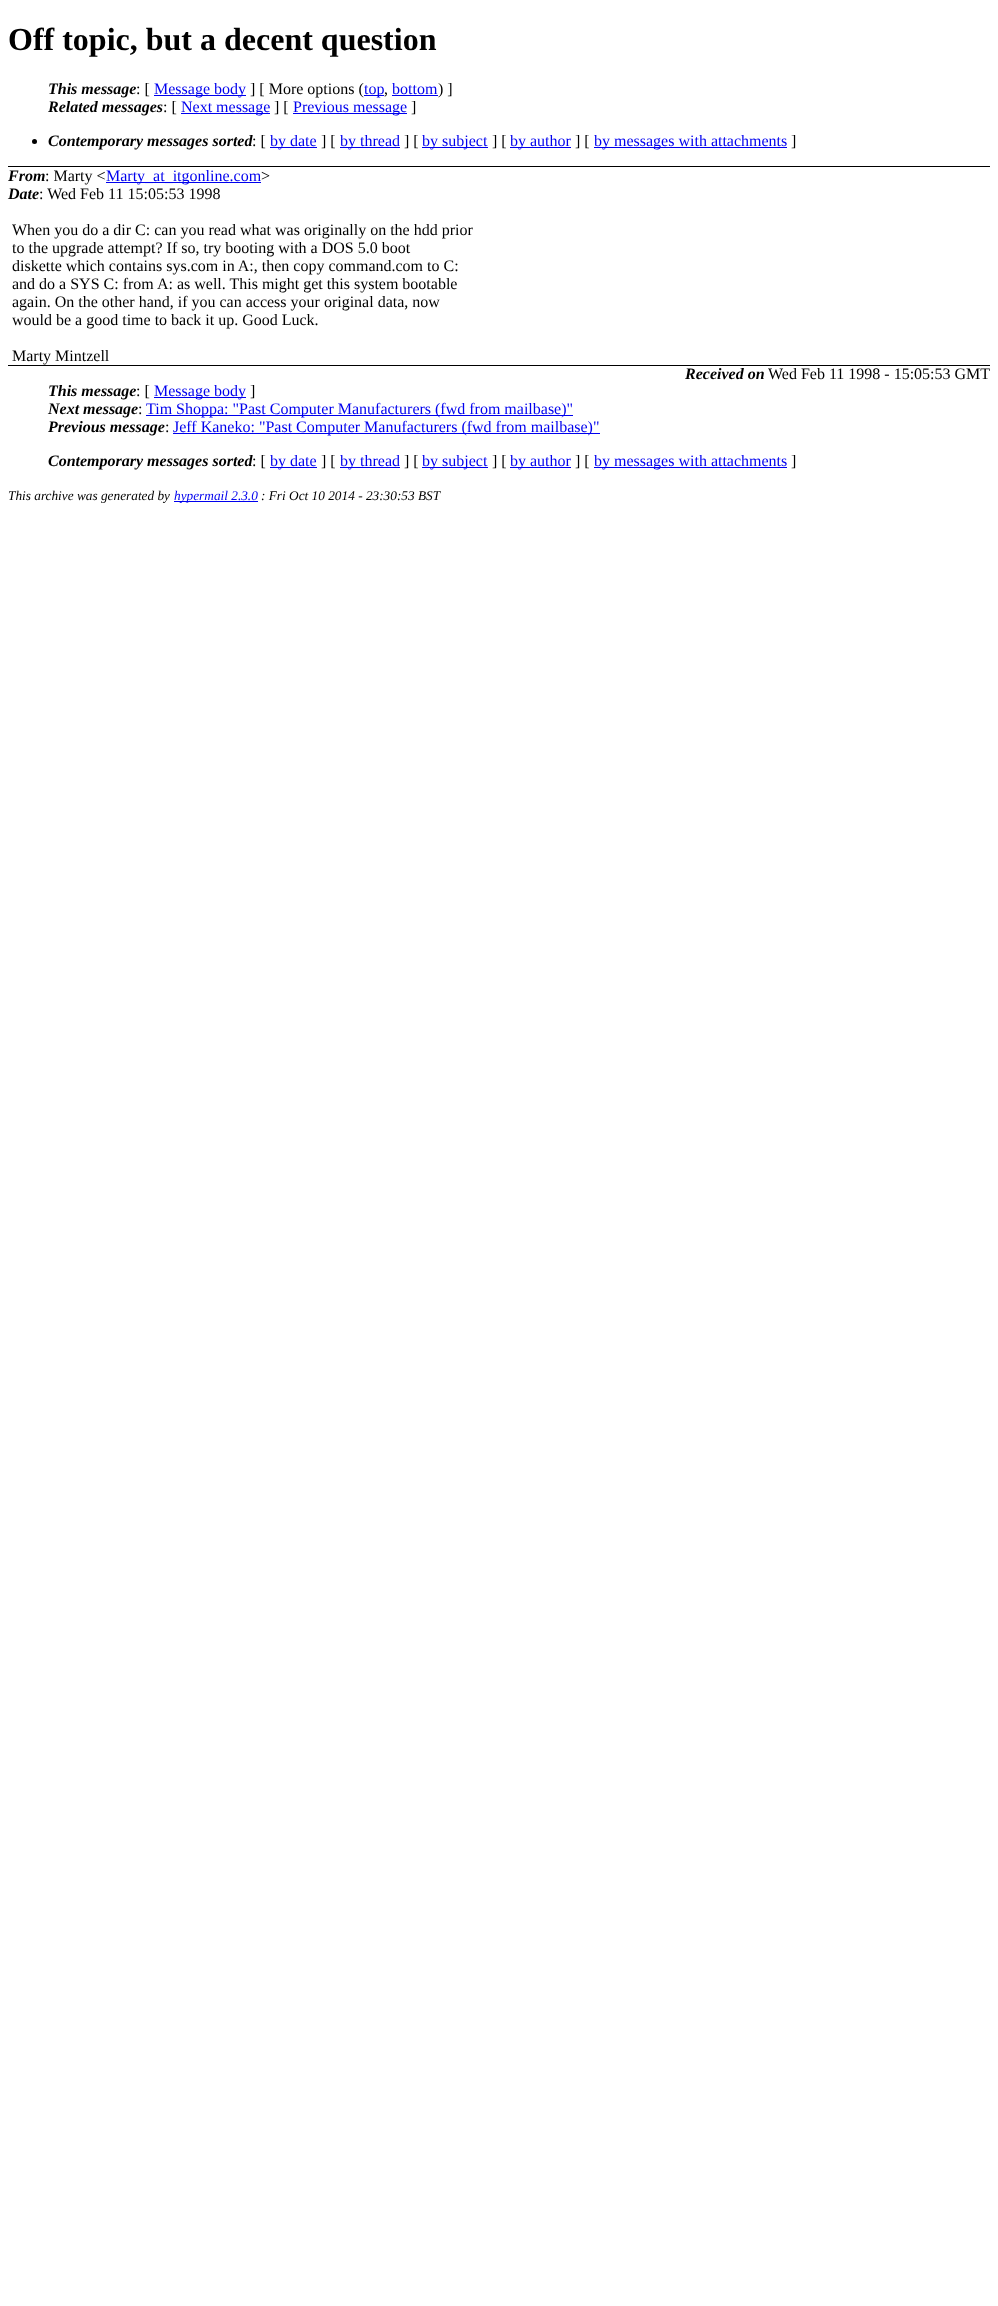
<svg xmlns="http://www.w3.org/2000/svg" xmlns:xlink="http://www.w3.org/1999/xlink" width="998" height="2306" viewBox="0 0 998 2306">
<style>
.cls-1{font:bold 32px Liberation Serif;fill:#000000}
.cls-2{font:italic bold 16px Liberation Serif;fill:#000000}
.cls-3{font:16px Liberation Serif;fill:#000000}
.cls-4{font:16px Liberation Serif;fill:#0000ee}
.cls-5{font:italic 13.3px Liberation Serif;fill:#000000}
.cls-6{font:italic 13.3px Liberation Serif;fill:#0000ee}
</style>
<rect width="100%" height="100%" fill="#ffffff"/>
<rect fill="#000000" x="8" y="166" width="982" height="1"/>
<rect fill="#0000ee" x="154" y="95" width="92" height="1"/>
<rect fill="#0000ee" x="364" y="95" width="20" height="1"/>
<rect fill="#0000ee" x="392" y="95" width="46" height="1"/>
<rect fill="#0000ee" x="181" y="113" width="89" height="1"/>
<rect fill="#0000ee" x="293" y="113" width="114" height="1"/>
<circle fill="#000000" cx="34.5" cy="141.5" r="2.5"/>
<rect fill="#0000ee" x="270" y="147" width="47" height="1"/>
<rect fill="#0000ee" x="340" y="147" width="60" height="1"/>
<rect fill="#0000ee" x="422" y="147" width="66" height="1"/>
<rect fill="#0000ee" x="510" y="147" width="61" height="1"/>
<rect fill="#0000ee" x="594" y="147" width="193" height="1"/>
<rect fill="#0000ee" x="106" y="182" width="155" height="1"/>
<rect fill="#000000" x="8" y="365" width="982" height="1"/>
<rect fill="#0000ee" x="154" y="397" width="92" height="1"/>
<rect fill="#0000ee" x="146" y="415" width="427" height="1"/>
<rect fill="#0000ee" x="173" y="433" width="427" height="1"/>
<rect fill="#0000ee" x="270" y="467" width="47" height="1"/>
<rect fill="#0000ee" x="340" y="467" width="60" height="1"/>
<rect fill="#0000ee" x="422" y="467" width="66" height="1"/>
<rect fill="#0000ee" x="510" y="467" width="61" height="1"/>
<rect fill="#0000ee" x="594" y="467" width="193" height="1"/>
<rect fill="#0000ee" x="174" y="501" width="84" height="1"/>
<text class="cls-1" x="8" y="50">Off topic, but a decent question</text>
<text class="cls-2" x="48" y="94">This message</text>
<text class="cls-3" x="136" y="94">: [</text>
<text class="cls-4" x="154" y="94">Message body</text>
<text class="cls-3" x="250" y="94">] [ More options (</text>
<text class="cls-4" x="364" y="94">top</text>
<text class="cls-3" x="384" y="94">,</text>
<text class="cls-4" x="392" y="94">bottom</text>
<text class="cls-3" x="438" y="94">) ]</text>
<text class="cls-2" x="48" y="112">Related messages</text>
<text class="cls-3" x="163" y="112">: [</text>
<text class="cls-4" x="181" y="112">Next message</text>
<text class="cls-3" x="274" y="112">] [</text>
<text class="cls-4" x="293" y="112">Previous message</text>
<text class="cls-3" x="411" y="112">]</text>
<text class="cls-2" x="48" y="146">Contemporary messages sorted</text>
<text class="cls-3" x="252" y="146">: [</text>
<text class="cls-4" x="270" y="146">by date</text>
<text class="cls-3" x="321" y="146">] [</text>
<text class="cls-4" x="340" y="146">by thread</text>
<text class="cls-3" x="404" y="146">] [</text>
<text class="cls-4" x="422" y="146">by subject</text>
<text class="cls-3" x="492" y="146">] [</text>
<text class="cls-4" x="510" y="146">by author</text>
<text class="cls-3" x="575" y="146">] [</text>
<text class="cls-4" x="594" y="146">by messages with attachments</text>
<text class="cls-3" x="791" y="146">]</text>
<text class="cls-2" x="8" y="181">From</text>
<text class="cls-3" x="45" y="181">: Marty &lt;</text>
<text class="cls-4" x="106" y="181">Marty_at_itgonline.com</text>
<text class="cls-3" x="261" y="181">&gt;</text>
<text class="cls-2" x="8" y="199">Date</text>
<text class="cls-3" x="39" y="199">: Wed Feb 11 15:05:53 1998</text>
<text class="cls-3"><tspan x="12" y="235">When you do a dir C: can you read what was originally on the hdd prior</tspan><tspan x="12" y="253">to the upgrade attempt? If so, try booting with a DOS 5.0 boot</tspan><tspan x="12" y="271">diskette which contains sys.com in A:, then copy command.com to C:</tspan><tspan x="12" y="289">and do a SYS C: from A: as well. This might get this system bootable</tspan><tspan x="12" y="307">again. On the other hand, if you can access your original data, now</tspan><tspan x="12" y="325">would be a good time to back it up. Good Luck.</tspan></text>
<text class="cls-3" x="12" y="361">Marty Mintzell</text>
<text class="cls-2" x="685" y="379">Received on</text>
<text class="cls-3" x="768" y="379">Wed Feb 11 1998 - 15:05:53 GMT</text>
<text class="cls-2" x="48" y="396">This message</text>
<text class="cls-3" x="136" y="396">: [</text>
<text class="cls-4" x="154" y="396">Message body</text>
<text class="cls-3" x="250" y="396">]</text>
<text class="cls-2" x="48" y="414">Next message</text>
<text class="cls-3" x="138" y="414">:</text>
<text class="cls-4" x="146" y="414">Tim Shoppa: "Past Computer Manufacturers (fwd from mailbase)"</text>
<text class="cls-2" x="48" y="432">Previous message</text>
<text class="cls-3" x="165" y="432">:</text>
<text class="cls-4" x="173" y="432">Jeff Kaneko: "Past Computer Manufacturers (fwd from mailbase)"</text>
<text class="cls-2" x="48" y="466">Contemporary messages sorted</text>
<text class="cls-3" x="252" y="466">: [</text>
<text class="cls-4" x="270" y="466">by date</text>
<text class="cls-3" x="321" y="466">] [</text>
<text class="cls-4" x="340" y="466">by thread</text>
<text class="cls-3" x="404" y="466">] [</text>
<text class="cls-4" x="422" y="466">by subject</text>
<text class="cls-3" x="492" y="466">] [</text>
<text class="cls-4" x="510" y="466">by author</text>
<text class="cls-3" x="575" y="466">] [</text>
<text class="cls-4" x="594" y="466">by messages with attachments</text>
<text class="cls-3" x="791" y="466">]</text>
<text class="cls-5" x="8" y="500">This archive was generated by</text>
<text class="cls-6" x="174" y="500">hypermail 2.3.0</text>
<text class="cls-5" x="261" y="500">: Fri Oct 10 2014 - 23:30:53 BST</text>
</svg>
